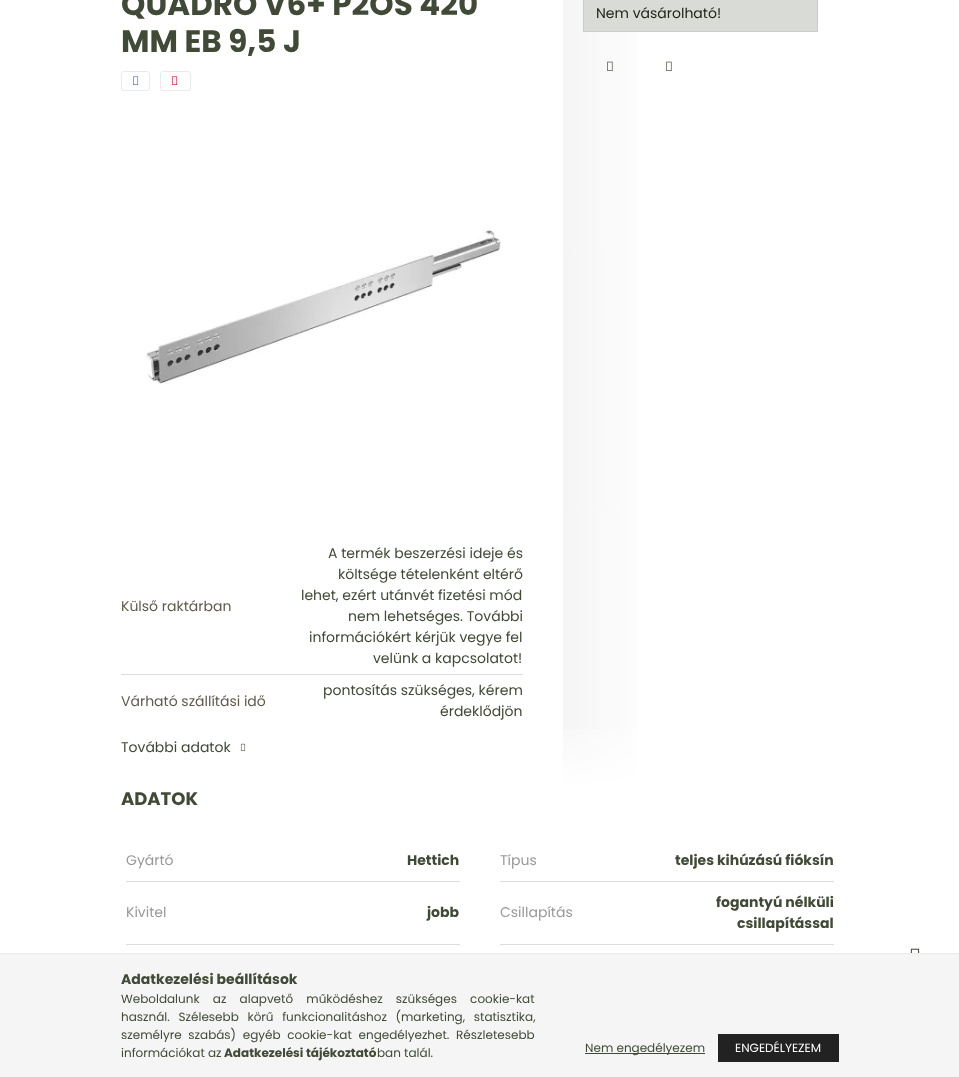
<svg xmlns="http://www.w3.org/2000/svg" xmlns:xlink="http://www.w3.org/1999/xlink" width="959" height="1077" viewBox="0 0 959 1077">
<style>
.cls-1{font:bold 31px Poppins;fill:#404a36}
.cls-2{font:14px Poppins;fill:#615b4e}
.cls-3{font:14px Poppins;fill:#404a36}
.cls-4{font:14px Poppins;fill:#21261c}
.cls-5{font:bold 18px Poppins;fill:#404a36}
.cls-6{font:14px Poppins;fill:#999999}
.cls-7{font:bold 14px Poppins;fill:#404a36}
.cls-8{font:12px Poppins;fill:#404a36}
.cls-9{font:bold 12px Poppins;fill:#404a36}
.cls-10{font:12px Poppins;fill:#ffffff}
</style>
<defs>
<linearGradient id="g1" gradientUnits="userSpaceOnUse" x1="563" y1="303" x2="838" y2="303"><stop offset="0" stop-color="#f5f5f5"/><stop offset="0.36" stop-color="#ffffff"/><stop offset="1" stop-color="#ffffff"/></linearGradient>
<linearGradient id="g2" gradientUnits="userSpaceOnUse" x1="701" y1="788" x2="701" y2="708"><stop offset="0" stop-color="#ffffff"/><stop offset="1" stop-color="#ffffff" stop-opacity="0"/></linearGradient>
<linearGradient id="g3" gradientUnits="userSpaceOnUse" x1="476" y1="1048" x2="839" y2="1048"><stop offset="0" stop-color="#404a36"/><stop offset="0.33" stop-color="#404a36"/><stop offset="0.67" stop-color="#222222"/><stop offset="1" stop-color="#222222"/></linearGradient>
</defs>
<rect width="100%" height="100%" fill="#ffffff"/>
<rect fill="none" stroke="#eaeaea" x="121.5" y="71.5" width="28" height="19" rx="2.5"/>
<image xlink:href="image0.png" x="133" y="76" width="6" height="9"/>
<rect fill="none" stroke="#eaeaea" x="160.5" y="71.5" width="30" height="19" rx="2.5"/>
<image xlink:href="image1.png" x="172" y="76" width="6" height="9"/>
<image xlink:href="image2.png" x="145" y="230" width="356" height="154"/>
<rect fill="#dddddd" x="121" y="674" width="402" height="1"/>
<image xlink:href="image3.png" x="240" y="743" width="6" height="8"/>
<rect fill="url(#g1)" x="563" y="0" width="74" height="788"/>
<rect fill="#d9dbd7" stroke="#caccc7" x="583.5" y="-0.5" width="234" height="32"/>
<image xlink:href="image4.png" x="607" y="61" width="6" height="10"/>
<image xlink:href="image5.png" x="666" y="61" width="6" height="10"/>
<rect fill="url(#g2)" x="563" y="729" width="74" height="59"/>
<rect fill="#dddddd" x="126" y="881" width="334" height="1"/>
<rect fill="#dddddd" x="500" y="881" width="334" height="1"/>
<rect fill="#dddddd" x="126" y="944" width="334" height="1"/>
<rect fill="#dddddd" x="500" y="944" width="334" height="1"/>
<image xlink:href="image6.png" x="910" y="948" width="10" height="5"/>
<rect fill="#f5f5f5" x="0" y="954" width="959" height="123"/>
<rect fill="#eaeaea" x="0" y="953" width="959" height="1"/>
<rect fill="#404a36" x="585" y="1053" width="120" height="1"/>
<rect fill="url(#g3)" x="718" y="1034" width="121" height="28"/>
<text class="cls-1"><tspan x="121" y="15">QUADRO V6+ P2OS 420</tspan><tspan x="121" y="52">MM EB 9,5 J</tspan></text>
<text class="cls-2" x="121" y="611">Külső raktárban</text>
<text class="cls-3" x="328" y="558">A termék beszerzési ideje és</text>
<text class="cls-3" x="338" y="579">költsége tételenként eltérő</text>
<text class="cls-3" x="301" y="600">lehet, ezért utánvét fizetési mód</text>
<text class="cls-3" x="348" y="621">nem lehetséges. További</text>
<text class="cls-3" x="309" y="642">információkért kérjük vegye fel</text>
<text class="cls-3" x="373" y="663">velünk a kapcsolatot!</text>
<text class="cls-2" x="121" y="706">Várható szállítási idő</text>
<text class="cls-3" x="323" y="695">pontosítás szükséges, kérem</text>
<text class="cls-3" x="440" y="716">érdeklődjön</text>
<text class="cls-3" x="121" y="752">További adatok</text>
<text class="cls-4" x="596" y="18">Nem vásárolható!</text>
<text class="cls-5" x="121" y="805">ADATOK</text>
<text class="cls-6" x="126" y="865">Gyártó</text>
<text class="cls-7" x="407" y="865">Hettich</text>
<text class="cls-6" x="500" y="865">Típus</text>
<text class="cls-7" x="675" y="865">teljes kihúzású fióksín</text>
<text class="cls-6" x="126" y="917">Kivitel</text>
<text class="cls-7" x="427" y="917">jobb</text>
<text class="cls-6" x="500" y="917">Csillapítás</text>
<text class="cls-7" x="716" y="907">fogantyú nélküli</text>
<text class="cls-7" x="737" y="928">csillapítással</text>
<text class="cls-7" x="121" y="984">Adatkezelési beállítások</text>
<text class="cls-8"><tspan x="121" y="1003" word-spacing="10">Weboldalunk az alapvető működéshez szükséges cookie-kat</tspan><tspan x="121" y="1021" word-spacing="5.5">használ. Szélesebb körű funkcionalitáshoz (marketing, statisztika,</tspan><tspan x="121" y="1039" word-spacing="3.5">személyre szabás) egyéb cookie-kat engedélyezhet. Részletesebb</tspan><tspan x="121" y="1057">információkat az</tspan></text>
<text class="cls-9" x="224" y="1057">Adatkezelési tájékoztató</text>
<text class="cls-8" x="377" y="1057">ban talál.</text>
<text class="cls-8" x="585" y="1052">Nem engedélyezem</text>
<text class="cls-10" x="735" y="1052">ENGEDÉLYEZEM</text>
</svg>
